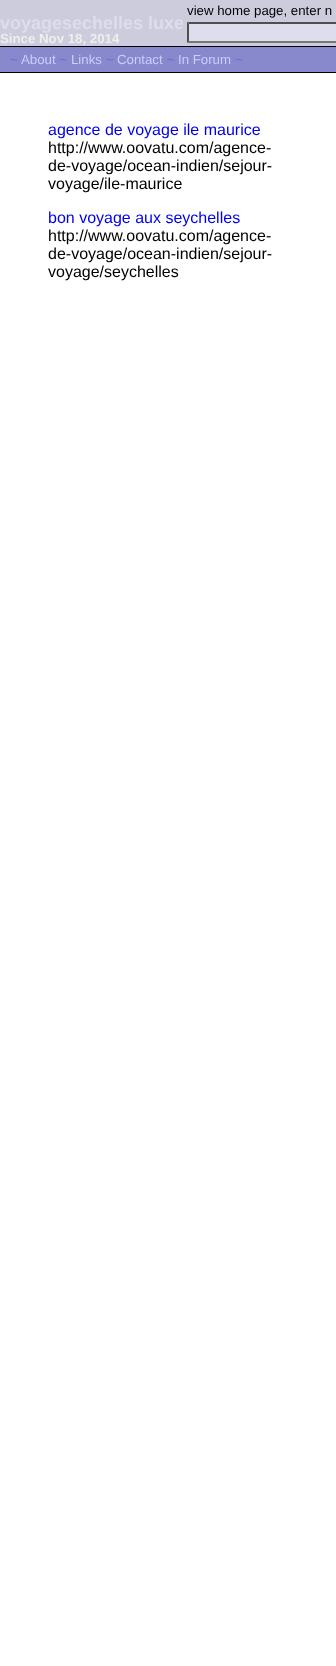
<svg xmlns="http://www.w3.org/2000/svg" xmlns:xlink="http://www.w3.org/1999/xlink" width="336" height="1666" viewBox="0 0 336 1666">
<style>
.cls-1{font:13.25px Liberation Sans;fill:#000000}
.cls-2{font:bold 18px Liberation Sans;fill:#ddddee}
.cls-3{font:bold 13.25px Liberation Sans;fill:#eeeeee}
.cls-4{font:13.25px Liberation Sans;fill:#6666dd}
.cls-5{font:13.25px Liberation Sans;fill:#ccccff}
.cls-6{font:16px Liberation Sans;fill:#0000ee}
.cls-7{font:16px Liberation Sans;fill:#000000}
</style>
<rect width="100%" height="100%" fill="#ffffff"/>
<rect fill="#ccccdd" x="0" y="0" width="336" height="46"/>
<rect fill="#ddddee" x="187" y="22" width="149" height="21"/>
<path fill="#4f4f4f" d="M187 22H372L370 24H189Z"/>
<path fill="#767676" d="M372 43H187L189 41H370Z"/>
<path fill="#4f4f4f" d="M187 43V22L189 24V41Z"/>
<rect fill="#8888cc" x="0" y="47" width="336" height="25"/>
<rect fill="#000000" x="0" y="46" width="336" height="1"/>
<rect fill="#000000" x="0" y="72" width="336" height="1"/>
<text class="cls-1" x="187" y="15">view home page, enter n</text>
<text class="cls-2" x="0" y="29">voyagesechelles luxe</text>
<text class="cls-3" x="0" y="43">Since Nov 18, 2014</text>
<text class="cls-4" x="10" y="64">~</text>
<text class="cls-5" x="21" y="64">About</text>
<text class="cls-4" x="59" y="64">~</text>
<text class="cls-5" x="71" y="64">Links</text>
<text class="cls-4" x="106" y="64">~</text>
<text class="cls-5" x="117" y="64">Contact</text>
<text class="cls-4" x="167" y="64">~</text>
<text class="cls-5" x="178" y="64">In Forum</text>
<text class="cls-4" x="235" y="64">~</text>
<text class="cls-6" x="48" y="135">agence de voyage ile maurice</text>
<text class="cls-7"><tspan x="48" y="153">http://www.oovatu.com/agence-</tspan><tspan x="48" y="171">de-voyage/ocean-indien/sejour-</tspan><tspan x="48" y="189">voyage/ile-maurice</tspan></text>
<text class="cls-6" x="48" y="223">bon voyage aux seychelles</text>
<text class="cls-7"><tspan x="48" y="241">http://www.oovatu.com/agence-</tspan><tspan x="48" y="259">de-voyage/ocean-indien/sejour-</tspan><tspan x="48" y="277">voyage/seychelles</tspan></text>
</svg>
